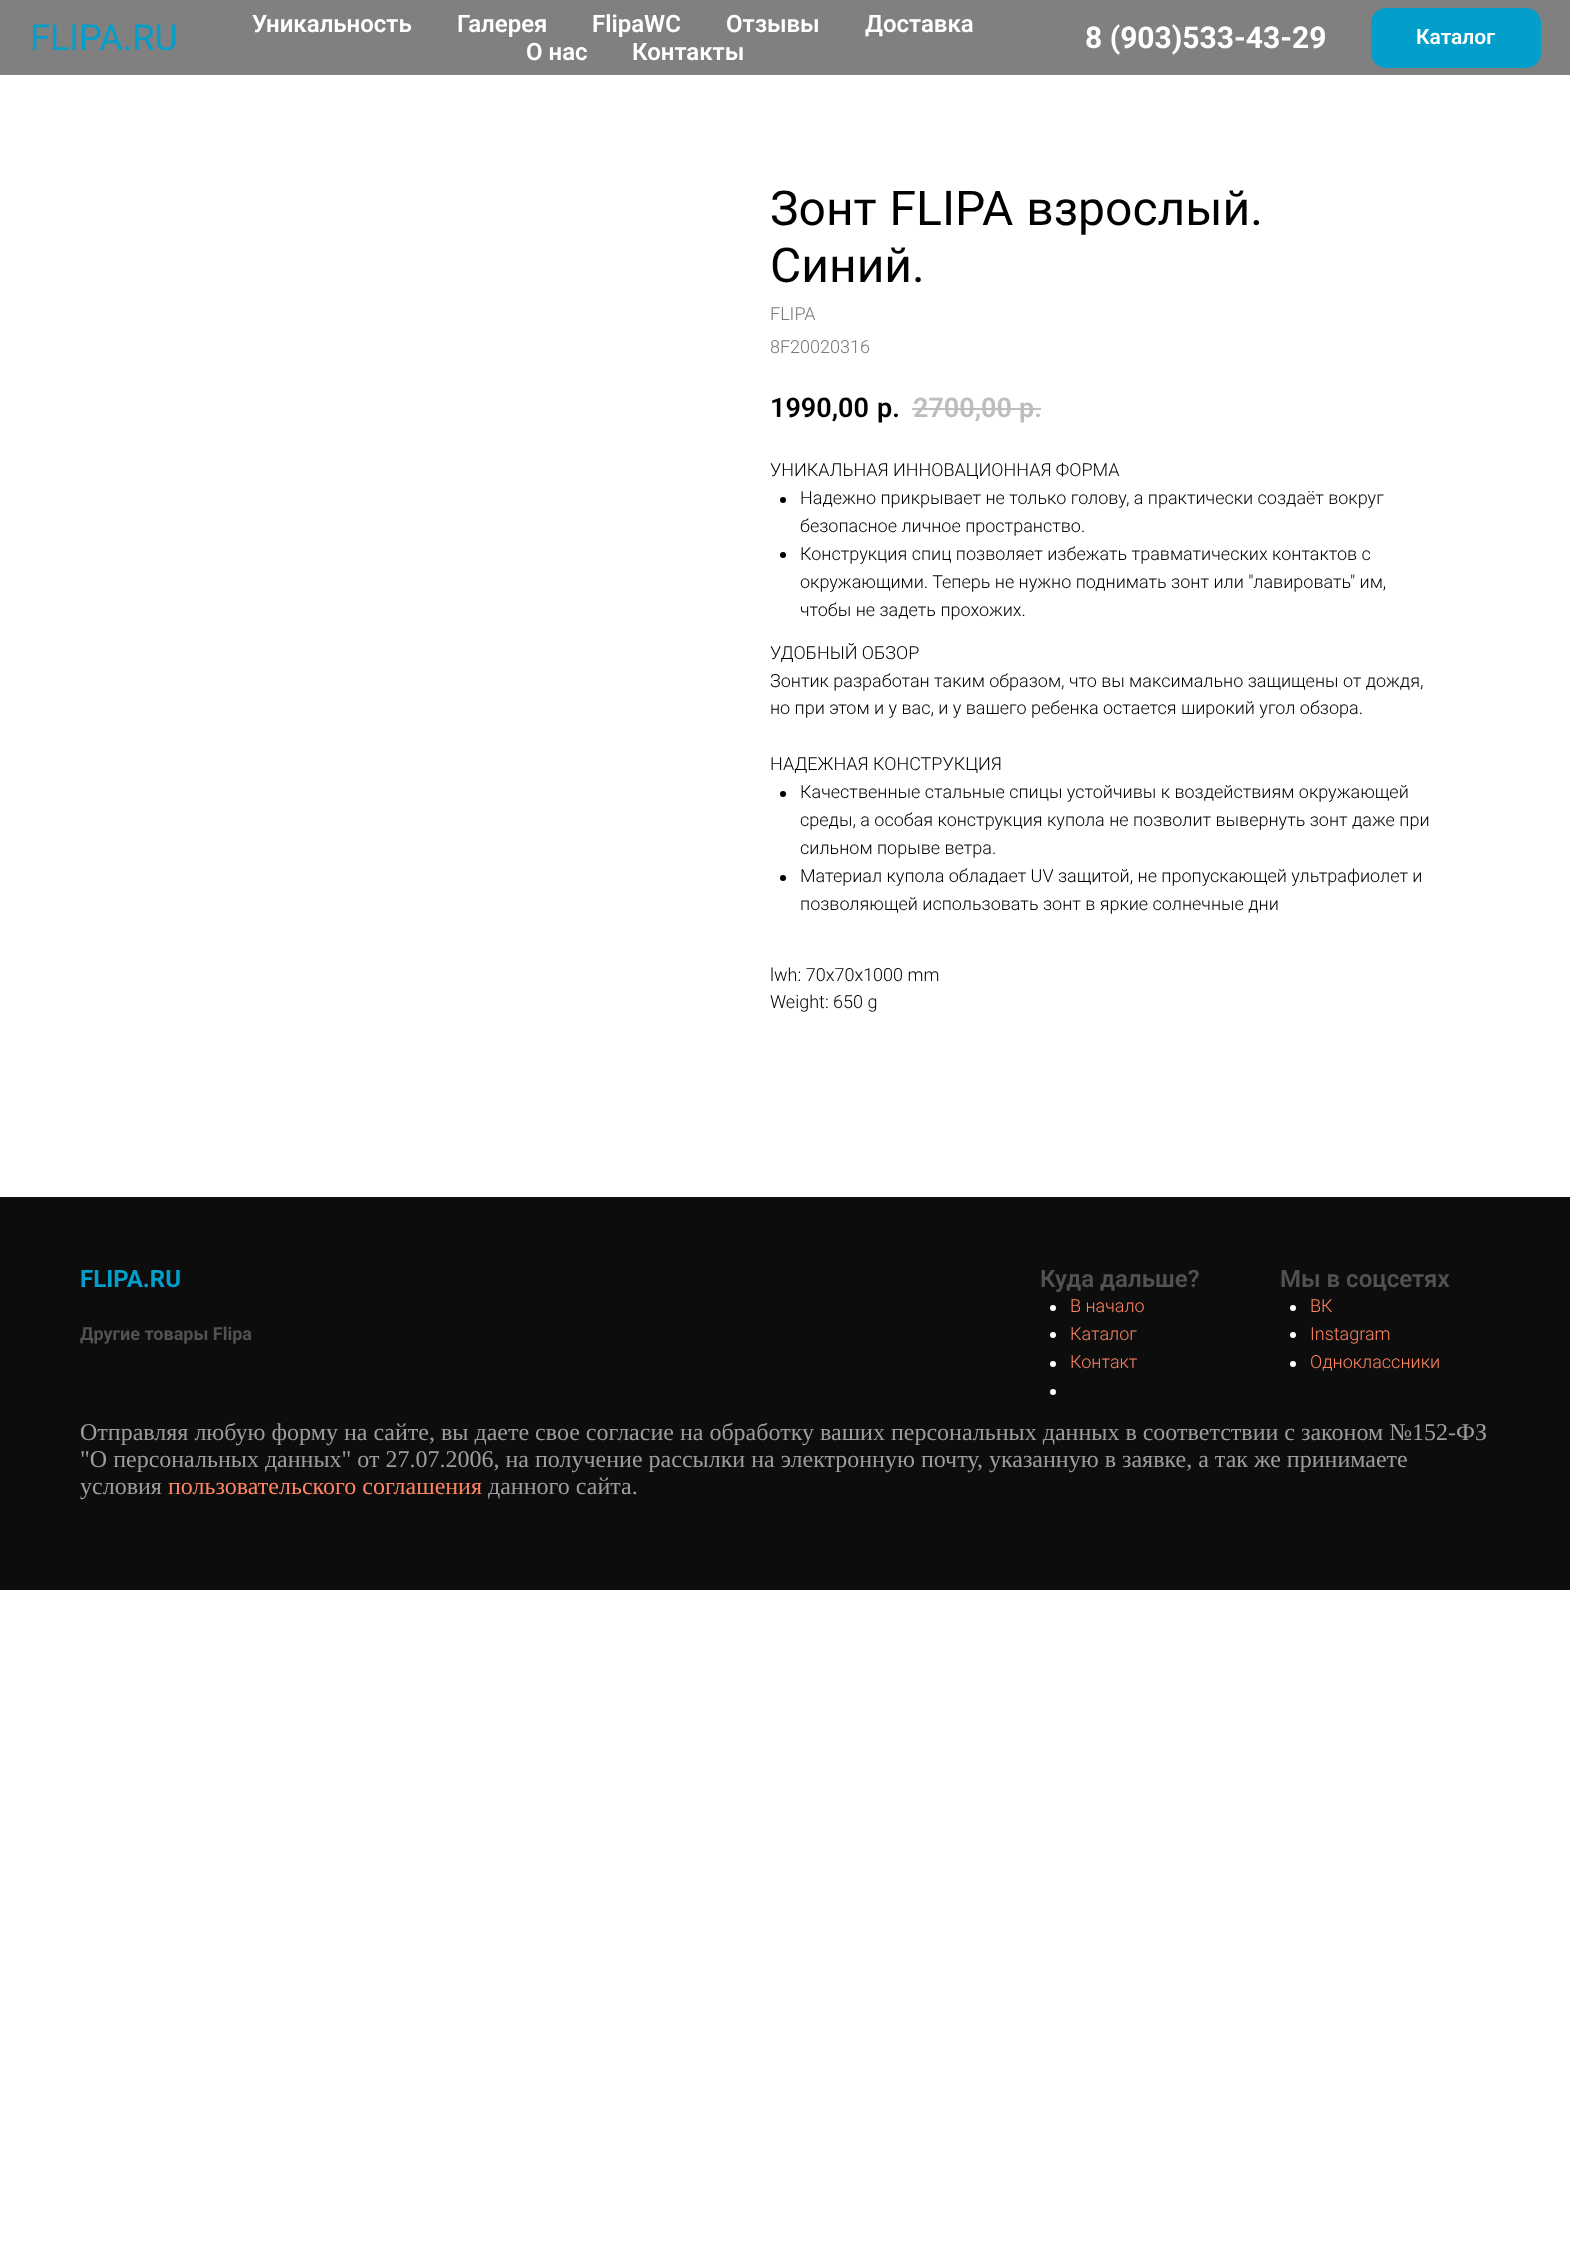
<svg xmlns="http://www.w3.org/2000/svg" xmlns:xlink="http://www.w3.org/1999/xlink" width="1570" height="2241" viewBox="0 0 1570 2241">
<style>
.cls-1{font:36px Roboto;fill:#039eca}
.cls-2{font:600 24px Roboto;fill:#ffffff}
.cls-3{font:bold 30px Roboto;fill:#ffffff}
.cls-4{font:600 21px Roboto;fill:#ffffff}
.cls-5{font:48px Roboto;fill:#000000}
.cls-6{font:300 18px Roboto;fill:#777777}
.cls-7{font:600 27px Roboto;fill:#000000}
.cls-8{font:600 27px Roboto;fill:#bdbdbd}
.cls-9{font:300 18px Roboto;fill:#000000}
.cls-10{font:bold 24px Roboto;fill:#039eca}
.cls-11{font:bold 18px Roboto;fill:#525252}
.cls-12{font:600 24px Roboto;fill:#525252}
.cls-13{font:300 18px Roboto;fill:#ff8562}
.cls-14{font:24px Liberation Serif;fill:#9d9d9d}
.cls-15{font:24px Liberation Serif;fill:#ff8562}
</style>
<rect width="100%" height="100%" fill="#ffffff"/>
<rect fill="#808080" x="0" y="0" width="1570" height="75"/>
<rect fill="#039eca" x="1371" y="8" width="170" height="60" rx="15"/>
<rect fill="#bdbdbd" x="912" y="408" width="129" height="2"/>
<circle fill="#000000" cx="783" cy="500" r="3"/>
<circle fill="#000000" cx="783" cy="555" r="3"/>
<circle fill="#000000" cx="783" cy="794" r="3"/>
<circle fill="#000000" cx="783" cy="878" r="3"/>
<rect fill="#0d0d0d" x="0" y="1197" width="1570" height="393"/>
<circle fill="#ffffff" cx="1053" cy="1308" r="3"/>
<circle fill="#ffffff" cx="1053" cy="1335" r="3"/>
<circle fill="#ffffff" cx="1053" cy="1364" r="3"/>
<circle fill="#ffffff" cx="1053" cy="1392" r="3"/>
<circle fill="#ffffff" cx="1293" cy="1308" r="3"/>
<circle fill="#ffffff" cx="1293" cy="1335" r="3"/>
<circle fill="#ffffff" cx="1293" cy="1364" r="3"/>
<text class="cls-1" x="30" y="50">FLIPA.RU</text>
<text class="cls-2" x="252" y="32">Уникальность</text>
<text class="cls-2" x="457" y="32">Галерея</text>
<text class="cls-2" x="592" y="32">FlipaWC</text>
<text class="cls-2" x="726" y="32">Отзывы</text>
<text class="cls-2" x="865" y="32">Доставка</text>
<text class="cls-2" x="526" y="60">О нас</text>
<text class="cls-2" x="632" y="60">Контакты</text>
<text class="cls-3" x="1085" y="48">8 (903)533-43-29</text>
<text class="cls-4" x="1416" y="44">Каталог</text>
<text class="cls-5"><tspan x="770" y="225" word-spacing="1">Зонт FLIPA взрослый.</tspan><tspan x="770" y="282">Синий.</tspan></text>
<text class="cls-6"><tspan x="770" y="320">FLIPA</tspan><tspan x="770" y="353">8F20020316</tspan></text>
<text class="cls-7" x="770" y="417">1990,00</text>
<text class="cls-7" x="877" y="417">р.</text>
<text class="cls-8" x="913" y="417">2700,00</text>
<text class="cls-8" x="1019" y="417">р.</text>
<text class="cls-9" x="770" y="476">УНИКАЛЬНАЯ ИННОВАЦИОННАЯ ФОРМА</text>
<text class="cls-9"><tspan x="800" y="504">Надежно прикрывает не только голову, а практически создаёт вокруг</tspan><tspan x="800" y="532">безопасное личное пространство.</tspan><tspan x="800" y="560">Конструкция спиц позволяет избежать травматических контактов с</tspan><tspan x="800" y="588">окружающими. Теперь не нужно поднимать зонт или "лавировать" им,</tspan><tspan x="800" y="616">чтобы не задеть прохожих.</tspan></text>
<text class="cls-9"><tspan x="770" y="659">УДОБНЫЙ ОБЗОР</tspan><tspan x="770" y="687">Зонтик разработан таким образом, что вы максимально защищены от дождя,</tspan><tspan x="770" y="714">но при этом и у вас, и у вашего ребенка остается широкий угол обзора.</tspan></text>
<text class="cls-9" x="770" y="770">НАДЕЖНАЯ КОНСТРУКЦИЯ</text>
<text class="cls-9"><tspan x="800" y="798">Качественные стальные спицы устойчивы к воздействиям окружающей</tspan><tspan x="800" y="826">среды, а особая конструкция купола не позволит вывернуть зонт даже при</tspan><tspan x="800" y="854">сильном порыве ветра.</tspan><tspan x="800" y="882">Материал купола обладает UV защитой, не пропускающей ультрафиолет и</tspan><tspan x="800" y="910">позволяющей использовать зонт в яркие солнечные дни</tspan></text>
<text class="cls-9"><tspan x="770" y="981">lwh: 70x70x1000 mm</tspan><tspan x="770" y="1008">Weight: 650 g</tspan></text>
<text class="cls-10" x="80" y="1287">FLIPA.RU</text>
<text class="cls-11" x="80" y="1340">Другие товары Flipa</text>
<text class="cls-12" x="1040" y="1287">Куда дальше?</text>
<text class="cls-13"><tspan x="1070" y="1312">В начало</tspan><tspan x="1070" y="1340">Каталог</tspan><tspan x="1070" y="1368">Контакт</tspan></text>
<text class="cls-12" x="1280" y="1287">Мы в соцсетях</text>
<text class="cls-13"><tspan x="1310" y="1312">ВК</tspan><tspan x="1310" y="1340">Instagram</tspan><tspan x="1310" y="1368">Одноклассники</tspan></text>
<text class="cls-14"><tspan x="80" y="1440">Отправляя любую форму на сайте, вы даете свое согласие на обработку ваших персональных данных в соответствии с законом №152-ФЗ</tspan><tspan x="80" y="1467">"О персональных данных" от 27.07.2006, на получение рассылки на электронную почту, указанную в заявке, а так же принимаете</tspan><tspan x="80" y="1494">условия</tspan></text>
<text class="cls-15" x="168" y="1494">пользовательского соглашения</text>
<text class="cls-14" x="488" y="1494">данного сайта.</text>
</svg>
